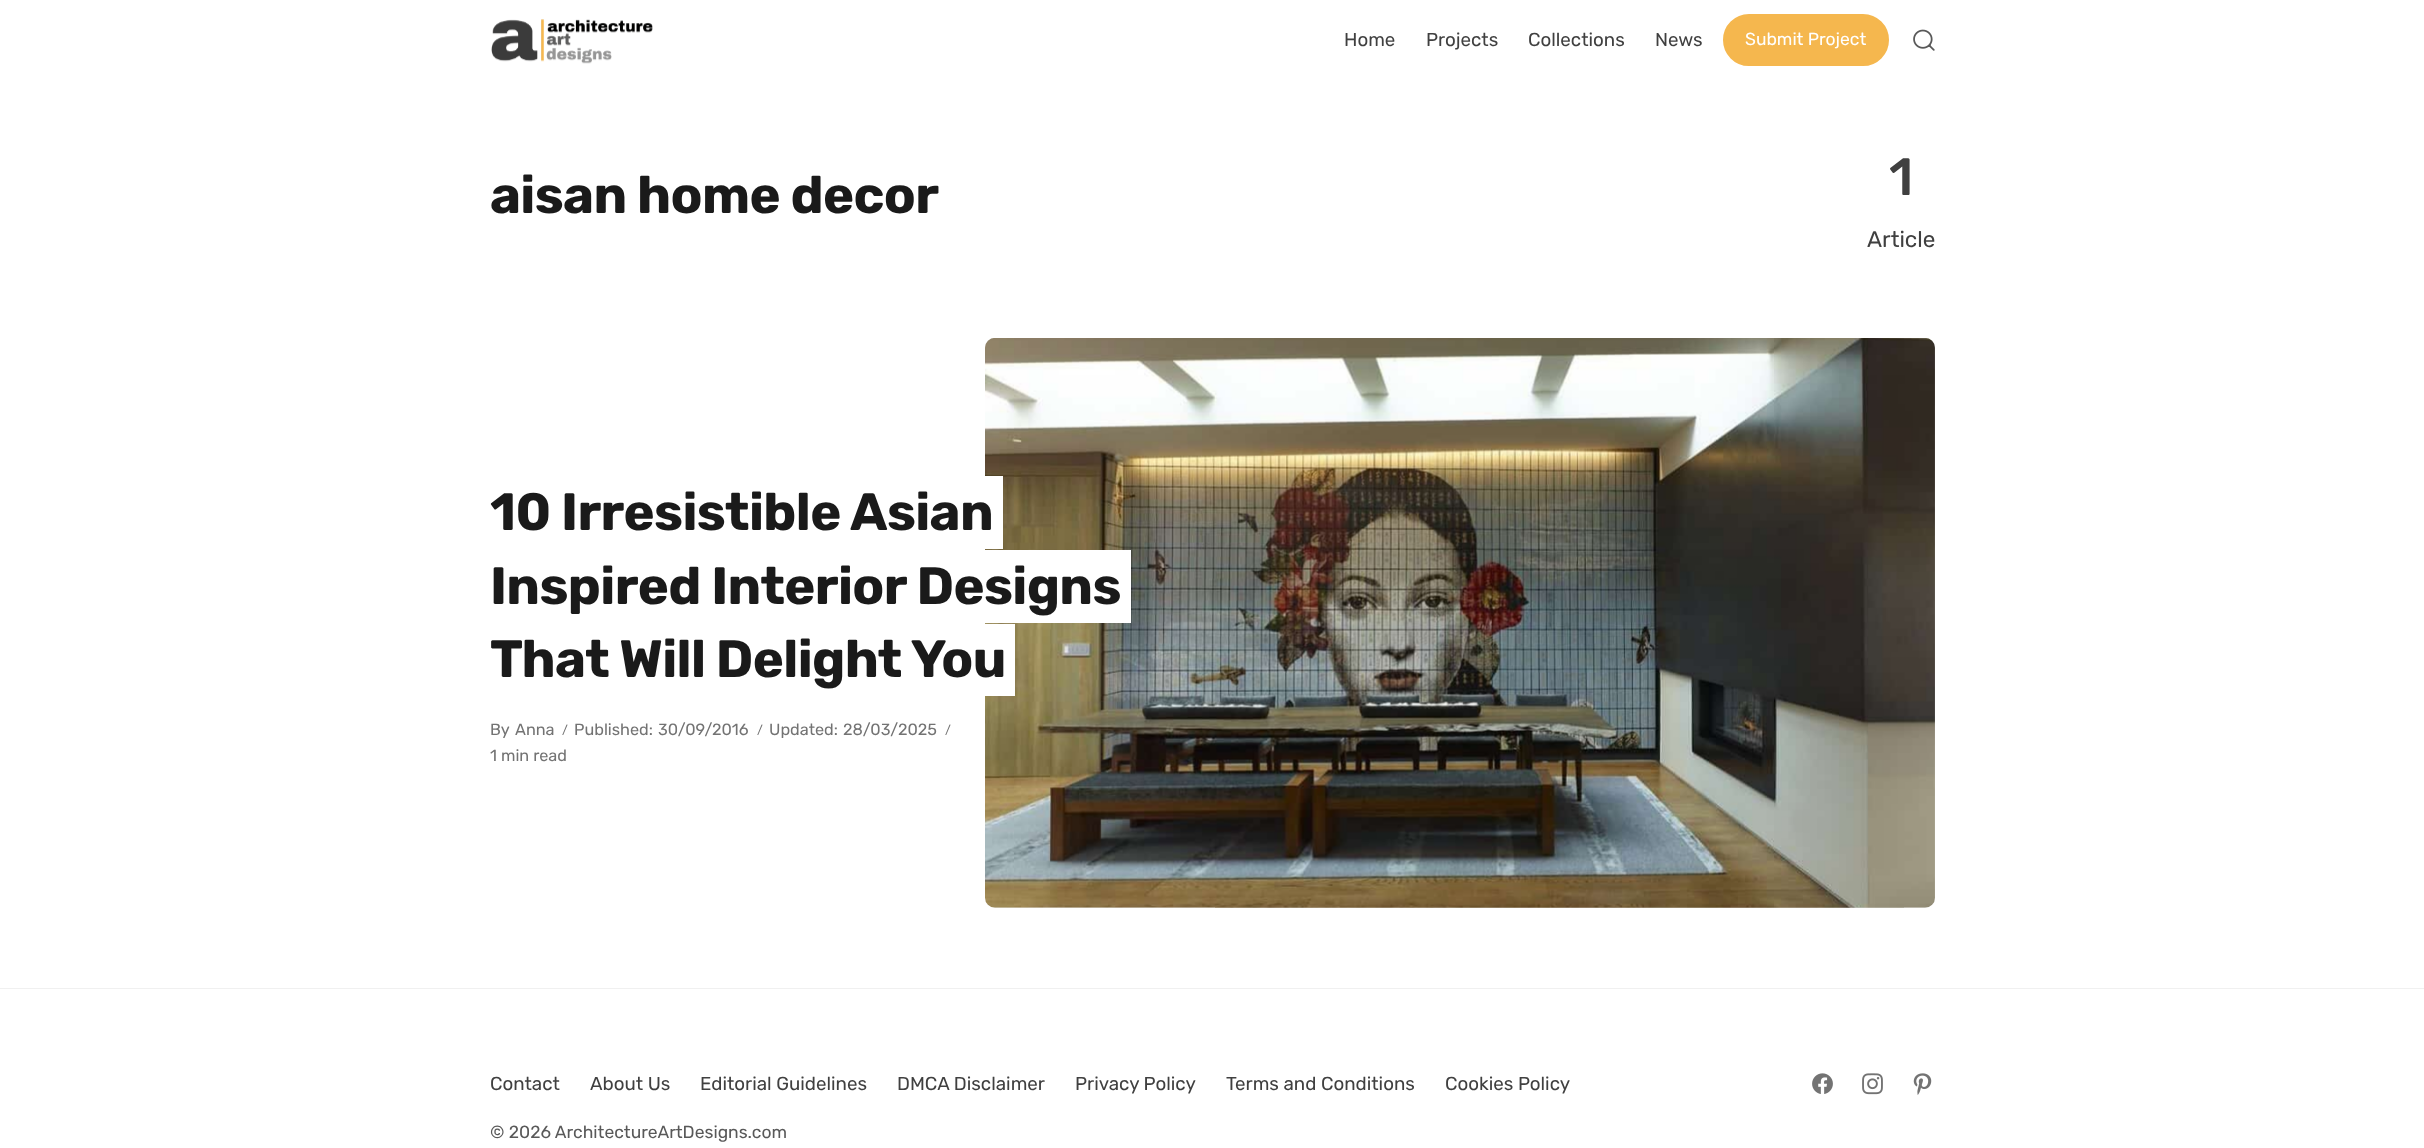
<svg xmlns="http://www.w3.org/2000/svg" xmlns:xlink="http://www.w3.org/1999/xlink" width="2424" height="1148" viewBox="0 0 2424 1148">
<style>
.cls-1{font:18.75px Rubik;fill:#404040}
.cls-2{font:17.5px Rubik;fill:#ffffff}
.cls-3{font:bold 52.5px Rubik;letter-spacing:-0.65px;fill:#1a1a1a}
.cls-4{font:500 52.5px Rubik;fill:#404040}
.cls-5{font:22.5px Rubik;fill:#404040}
.cls-6{font:16.25px Rubik;fill:#737373}
.cls-7{font:12px Rubik;fill:#737373}
.cls-8{font:17.5px Rubik;fill:#595959}
</style>
<rect width="100%" height="100%" fill="#ffffff"/>
<image xlink:href="image0.png" x="491" y="19" width="162" height="45"/>
<rect fill="#f5b74e" stroke="#f5b74e" stroke-width="3" x="1724.5" y="15.5" width="163" height="49" rx="24.5"/>
<image xlink:href="image1.png" x="1913" y="29" width="22" height="22"/>
<rect fill="#f1f1f1" x="985" y="338" width="950" height="570" rx="10"/>
<image xlink:href="image2.png" x="985" y="338" width="950" height="570"/>
<path fill="#ffffff" d="M500 476V481H992V539H1003V476Z"/>
<path fill="#ffffff" d="M500 544V549H1003V486H992V544Z"/>
<rect fill="#ffffff" x="985" y="481" width="7" height="63"/>
<path fill="#ffffff" d="M500 550V555H1121V613H1131V550Z"/>
<path fill="#ffffff" d="M500 618V623H1131V560H1121V618Z"/>
<rect fill="#ffffff" x="985" y="555" width="136" height="63"/>
<path fill="#ffffff" d="M500 624V629H1005V686H1015V624Z"/>
<path fill="#ffffff" d="M500 691V696H1015V634H1005V691Z"/>
<rect fill="#ffffff" x="985" y="629" width="20" height="62"/>
<rect fill="#f0f0f0" x="0" y="988" width="2424" height="1"/>
<image xlink:href="image3.png" x="1812" y="1073" width="21" height="21"/>
<image xlink:href="image4.png" x="1862" y="1073" width="21" height="22"/>
<image xlink:href="image5.png" x="1913" y="1073" width="19" height="22"/>
<text class="cls-1" x="1344" y="46">Home</text>
<text class="cls-1" x="1426" y="46">Projects</text>
<text class="cls-1" x="1528" y="46">Collections</text>
<text class="cls-1" x="1655" y="46">News</text>
<text class="cls-2" x="1745" y="45">Submit Project</text>
<text class="cls-3" x="490" y="213">aisan home decor</text>
<text class="cls-4" x="1889" y="195">1</text>
<text class="cls-5" x="1867" y="247">Article</text>
<text class="cls-3"><tspan x="490" y="530">10 Irresistible Asian</tspan><tspan x="490" y="604">Inspired Interior Designs</tspan><tspan x="490" y="677">That Will Delight You</tspan></text>
<text class="cls-6" x="490" y="735">By</text>
<text class="cls-6" x="515" y="735">Anna</text>
<text class="cls-7" x="562" y="734">/</text>
<text class="cls-6" x="574" y="735">Published:</text>
<text class="cls-6" x="658" y="735">30/09/2016</text>
<text class="cls-7" x="757" y="734">/</text>
<text class="cls-6" x="769" y="735">Updated:</text>
<text class="cls-6" x="843" y="735">28/03/2025</text>
<text class="cls-7" x="945" y="734">/</text>
<text class="cls-6" x="490" y="761">1 min read</text>
<text class="cls-1" x="490" y="1090">Contact</text>
<text class="cls-1" x="590" y="1090">About Us</text>
<text class="cls-1" x="700" y="1090">Editorial Guidelines</text>
<text class="cls-1" x="897" y="1090">DMCA Disclaimer</text>
<text class="cls-1" x="1075" y="1090">Privacy Policy</text>
<text class="cls-1" x="1226" y="1090">Terms and Conditions</text>
<text class="cls-1" x="1445" y="1090">Cookies Policy</text>
<text class="cls-8" x="490" y="1138">© 2026 ArchitectureArtDesigns.com</text>
</svg>
